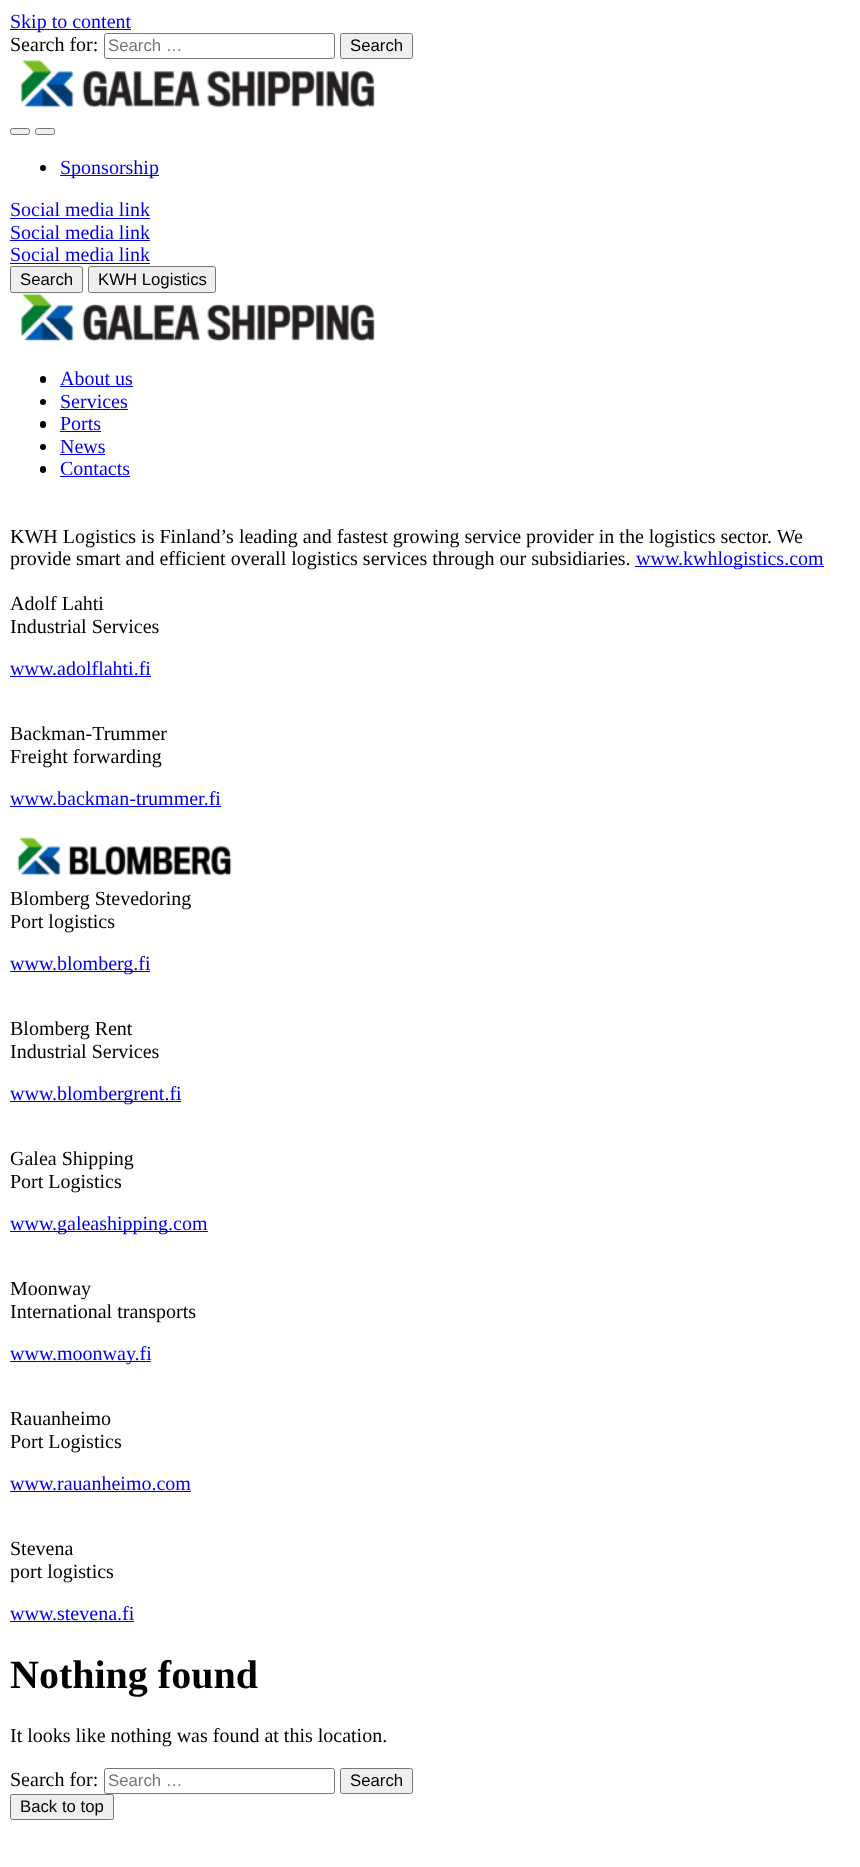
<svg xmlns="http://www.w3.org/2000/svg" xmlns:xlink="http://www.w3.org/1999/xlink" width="860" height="1867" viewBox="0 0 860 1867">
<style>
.cls-1{font:20px Liberation Serif;fill:#0000ee}
.cls-2{font:20px Liberation Serif;fill:#000000}
.cls-3{font:16.75px Liberation Sans;fill:#757575}
.cls-4{font:16.75px Liberation Sans;fill:#000000}
.cls-5{font:bold 40px Liberation Serif;fill:#000000}
</style>
<rect width="100%" height="100%" fill="#ffffff"/>
<rect fill="#0000ee" x="10" y="29" width="121" height="1"/>
<rect fill="none" stroke="#767676" x="104.5" y="33.5" width="230" height="25" rx="2"/>
<rect fill="#efefef" stroke="#767676" x="340.5" y="33.5" width="72" height="25" rx="2"/>
<image xlink:href="image0.png" x="21" y="59" width="354" height="49"/>
<rect fill="#efefef" stroke="#767676" x="10.5" y="128.5" width="19" height="6" rx="2"/>
<rect fill="#efefef" stroke="#767676" x="35.5" y="128.5" width="19" height="6" rx="2"/>
<circle fill="#000000" cx="43" cy="168" r="3"/>
<rect fill="#0000ee" x="60" y="175" width="99" height="1"/>
<rect fill="#0000ee" x="10" y="218" width="140" height="1"/>
<rect fill="#0000ee" x="10" y="240" width="140" height="1"/>
<rect fill="#0000ee" x="10" y="263" width="140" height="1"/>
<rect fill="#efefef" stroke="#767676" x="10.5" y="266.5" width="72" height="26" rx="2"/>
<rect fill="#efefef" stroke="#767676" x="88.5" y="266.5" width="127" height="26" rx="2"/>
<image xlink:href="image1.png" x="21" y="293" width="354" height="49"/>
<rect fill="#000000" x="40" y="376" width="6" height="7" rx="3"/>
<rect fill="#0000ee" x="60" y="386" width="73" height="1"/>
<circle fill="#000000" cx="43" cy="402" r="3"/>
<rect fill="#0000ee" x="60" y="409" width="68" height="1"/>
<rect fill="#000000" x="40" y="421" width="6" height="7" rx="3"/>
<rect fill="#0000ee" x="60" y="431" width="41" height="1"/>
<circle fill="#000000" cx="43" cy="447" r="3"/>
<rect fill="#0000ee" x="60" y="454" width="45" height="1"/>
<rect fill="#000000" x="40" y="466" width="6" height="7" rx="3"/>
<rect fill="#0000ee" x="60" y="476" width="70" height="1"/>
<rect fill="#0000ee" x="635" y="566" width="189" height="1"/>
<rect fill="#0000ee" x="10" y="676" width="141" height="1"/>
<rect fill="#0000ee" x="10" y="806" width="211" height="1"/>
<image xlink:href="image2.png" x="17" y="837" width="215" height="39"/>
<rect fill="#0000ee" x="10" y="971" width="140" height="1"/>
<rect fill="#0000ee" x="10" y="1101" width="171" height="1"/>
<rect fill="#0000ee" x="10" y="1231" width="198" height="1"/>
<rect fill="#0000ee" x="10" y="1361" width="141" height="1"/>
<rect fill="#0000ee" x="10" y="1491" width="181" height="1"/>
<rect fill="#0000ee" x="10" y="1621" width="124" height="1"/>
<rect fill="none" stroke="#767676" x="104.5" y="1768.5" width="230" height="25" rx="2"/>
<rect fill="#efefef" stroke="#767676" x="340.5" y="1768.5" width="72" height="25" rx="2"/>
<rect fill="#efefef" stroke="#767676" x="10.5" y="1794.5" width="103" height="25" rx="2"/>
<text class="cls-1" x="10" y="28">Skip to content</text>
<text class="cls-2" x="10" y="51">Search for:</text>
<text class="cls-3" x="108" y="51">Search …</text>
<text class="cls-4" x="350" y="51">Search</text>
<text class="cls-1" x="60" y="174">Sponsorship</text>
<text class="cls-1"><tspan x="10" y="216">Social media link</tspan><tspan x="10" y="239">Social media link</tspan><tspan x="10" y="261">Social media link</tspan></text>
<text class="cls-4" x="20" y="285">Search</text>
<text class="cls-4" x="98" y="285">KWH Logistics</text>
<text class="cls-1"><tspan x="60" y="385">About us</tspan><tspan x="60" y="408">Services</tspan><tspan x="60" y="430">Ports</tspan><tspan x="60" y="453">News</tspan><tspan x="60" y="475">Contacts</tspan></text>
<text class="cls-2"><tspan x="10" y="543">KWH Logistics is Finland’s leading and fastest growing service provider in the logistics sector. We</tspan><tspan x="10" y="565">provide smart and efficient overall logistics services through our subsidiaries.</tspan></text>
<text class="cls-1" x="636" y="565">www.kwhlogistics.com</text>
<text class="cls-2"><tspan x="10" y="610">Adolf Lahti</tspan><tspan x="10" y="633">Industrial Services</tspan></text>
<text class="cls-1" x="10" y="675">www.adolflahti.fi</text>
<text class="cls-2"><tspan x="10" y="740">Backman-Trummer</tspan><tspan x="10" y="763">Freight forwarding</tspan></text>
<text class="cls-1" x="10" y="805">www.backman-trummer.fi</text>
<text class="cls-2"><tspan x="10" y="905">Blomberg Stevedoring</tspan><tspan x="10" y="928">Port logistics</tspan></text>
<text class="cls-1" x="10" y="970">www.blomberg.fi</text>
<text class="cls-2"><tspan x="10" y="1035">Blomberg Rent</tspan><tspan x="10" y="1058">Industrial Services</tspan></text>
<text class="cls-1" x="10" y="1100">www.blombergrent.fi</text>
<text class="cls-2"><tspan x="10" y="1165">Galea Shipping</tspan><tspan x="10" y="1188">Port Logistics</tspan></text>
<text class="cls-1" x="10" y="1230">www.galeashipping.com</text>
<text class="cls-2"><tspan x="10" y="1295">Moonway</tspan><tspan x="10" y="1318">International transports</tspan></text>
<text class="cls-1" x="10" y="1360">www.moonway.fi</text>
<text class="cls-2"><tspan x="10" y="1425">Rauanheimo</tspan><tspan x="10" y="1448">Port Logistics</tspan></text>
<text class="cls-1" x="10" y="1490">www.rauanheimo.com</text>
<text class="cls-2"><tspan x="10" y="1555">Stevena</tspan><tspan x="10" y="1578">port logistics</tspan></text>
<text class="cls-1" x="10" y="1620">www.stevena.fi</text>
<text class="cls-5" x="10" y="1688">Nothing found</text>
<text class="cls-2" x="10" y="1742">It looks like nothing was found at this location.</text>
<text class="cls-2" x="10" y="1786">Search for:</text>
<text class="cls-3" x="108" y="1786">Search …</text>
<text class="cls-4" x="350" y="1786">Search</text>
<text class="cls-4" x="20" y="1812">Back to top</text>
</svg>
